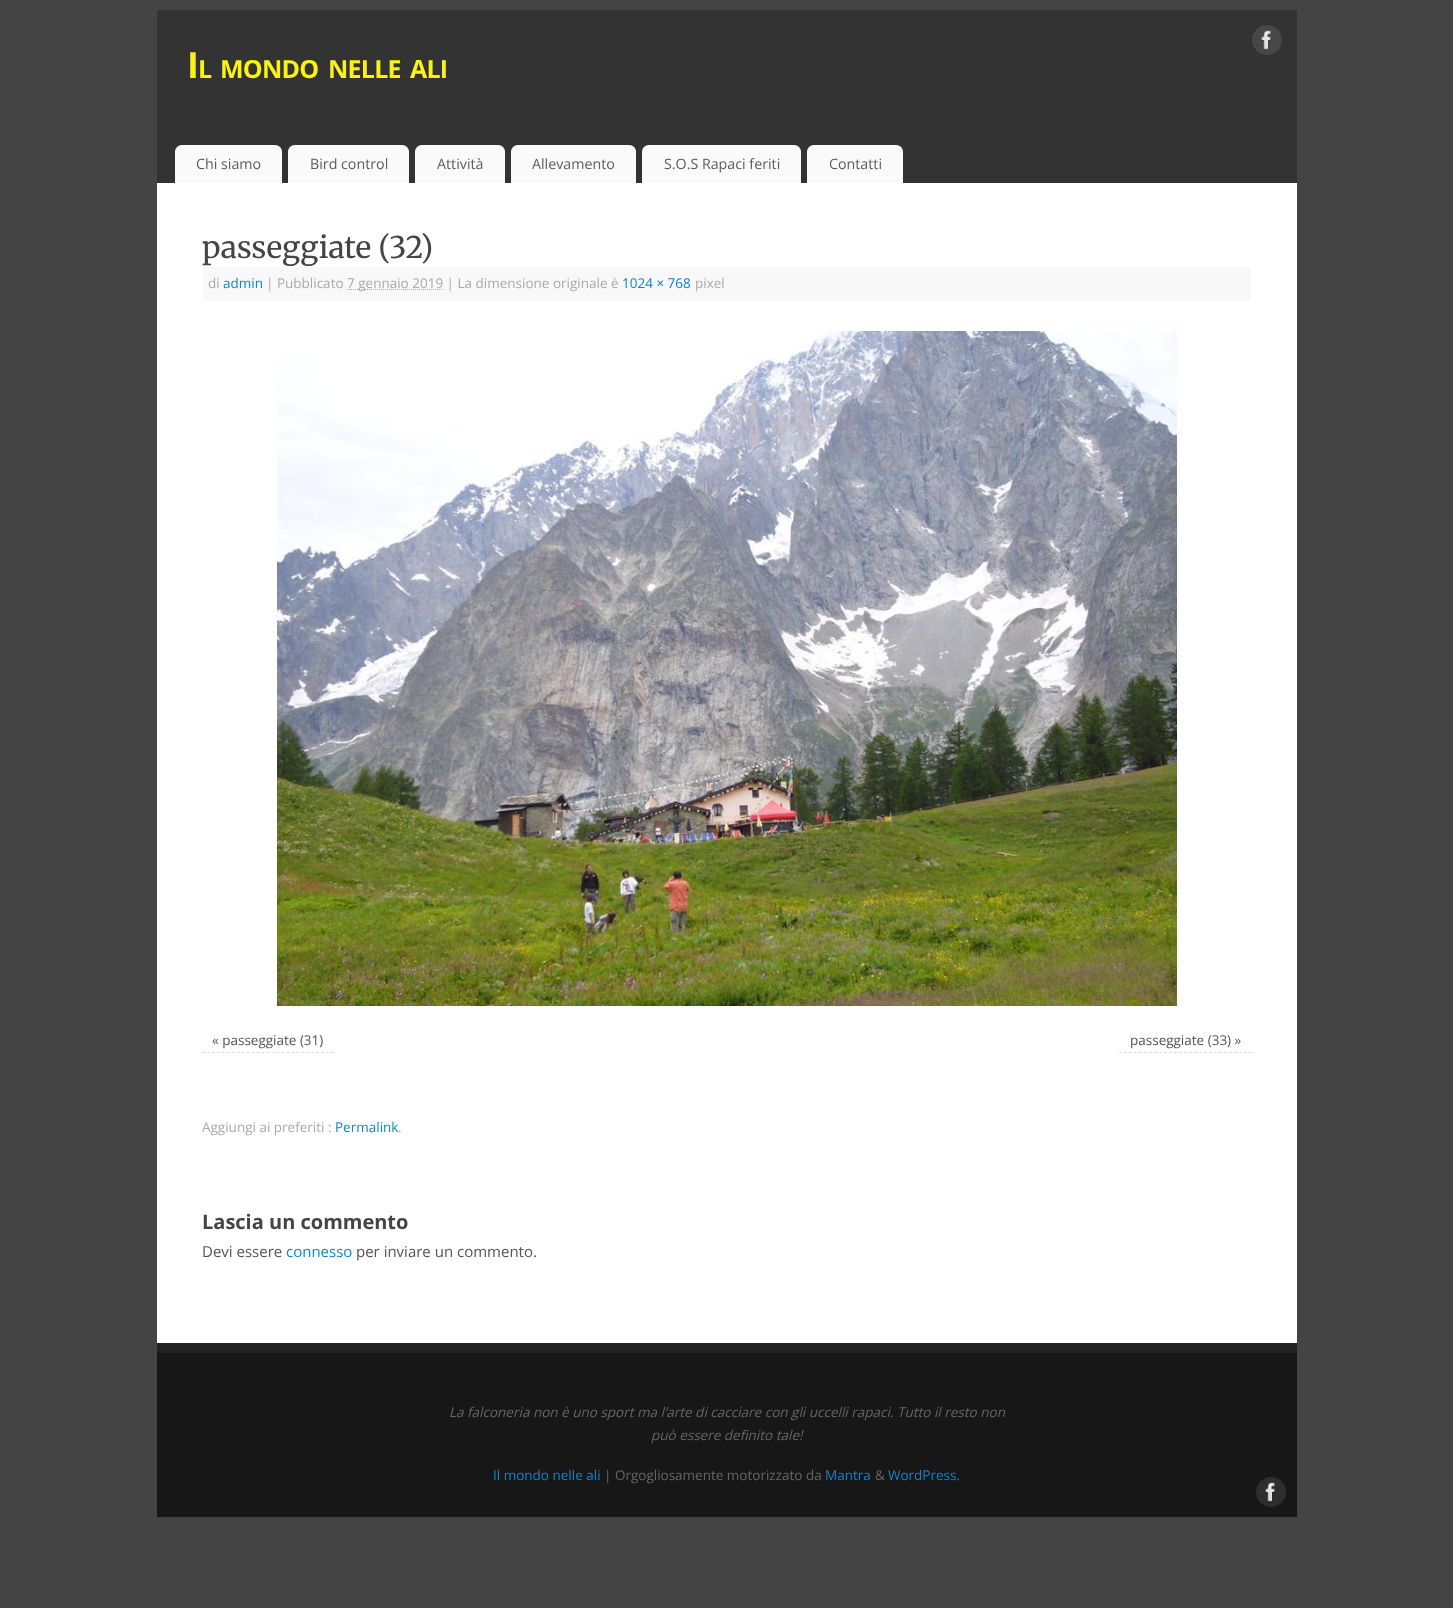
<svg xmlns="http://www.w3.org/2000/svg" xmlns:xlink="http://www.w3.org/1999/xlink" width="1453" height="1608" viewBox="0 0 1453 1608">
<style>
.cls-1{font:bold 36px Open Sans;letter-spacing:-0.75px;fill:#f9f213}
.cls-2{font:bold 25px Open Sans;letter-spacing:-0.75px;fill:#f9f213}
.cls-3{font:14.25px Open Sans;fill:#5f5b5b}
.cls-4{font:30px Merriweather;fill:#444444}
.cls-5{font:13.5px Open Sans;fill:#aaaaaa}
.cls-6{font:13.5px Open Sans;fill:#0d85cc}
.cls-7{font:13.5px Open Sans;fill:#555555}
.cls-8{font:bold 20px Open Sans;fill:#444444}
.cls-9{font:15px Open Sans;fill:#555555}
.cls-10{font:15px Open Sans;fill:#0d85cc}
.cls-11{font:italic 13.5px Open Sans;fill:#666666}
.cls-12{font:13.5px Open Sans;fill:#666666}
</style>
<rect width="100%" height="100%" fill="#444444"/>
<rect fill="#333333" x="157" y="10" width="1140" height="173"/>
<circle fill="#474747" cx="1267" cy="40" r="15"/>
<image xlink:href="image0.png" x="1261" y="30" width="10" height="21"/>
<path fill="#fafafa" d="M182 145H275C279 145 282 148 282 152V183H175V152C175 148 178 145 182 145Z"/>
<path fill="#fafafa" d="M295 145H402C406 145 409 148 409 152V183H288V152C288 148 291 145 295 145Z"/>
<path fill="#fafafa" d="M422 145H498C502 145 505 148 505 152V183H415V152C415 148 418 145 422 145Z"/>
<path fill="#fafafa" d="M518 145H629C633 145 636 148 636 152V183H511V152C511 148 514 145 518 145Z"/>
<path fill="#fafafa" d="M649 145H794C798 145 801 148 801 152V183H642V152C642 148 645 145 649 145Z"/>
<path fill="#fafafa" d="M814 145H896C900 145 903 148 903 152V183H807V152C807 148 810 145 814 145Z"/>
<rect fill="#ffffff" x="157" y="183" width="1140" height="1160"/>
<rect fill="#f8f8f8" x="203" y="267" width="1048" height="34"/>
<path fill="none" stroke="#aaaaaa" stroke-dasharray="1 1" d="M347 289.5H443.5"/>
<image xlink:href="image1.png" x="277" y="331" width="900" height="675"/>
<path fill="none" stroke="#dddddd" stroke-dasharray="3 1.96" d="M202 1052.5H334"/>
<path fill="none" stroke="#dddddd" stroke-dasharray="3 2" d="M1119 1052.5H1252"/>
<rect fill="#222222" x="157" y="1343" width="1140" height="10"/>
<rect fill="#171717" x="157" y="1353" width="1140" height="164"/>
<circle fill="#2e2e2e" cx="1271" cy="1492" r="15"/>
<image xlink:href="image2.png" x="1265" y="1482" width="10" height="21"/>
<text class="cls-1" x="187" y="78">I</text>
<text class="cls-2" x="198" y="78">L</text>
<text class="cls-2" x="220" y="78">MONDO</text>
<text class="cls-2" x="328" y="78">NELLE</text>
<text class="cls-2" x="410" y="78">ALI</text>
<text class="cls-3" x="196" y="169">Chi siamo</text>
<text class="cls-3" x="310" y="169">Bird control</text>
<text class="cls-3" x="437" y="169">Attività</text>
<text class="cls-3" x="532" y="169">Allevamento</text>
<text class="cls-3" x="664" y="169">S.O.S Rapaci feriti</text>
<text class="cls-3" x="829" y="169">Contatti</text>
<text class="cls-4" x="202" y="258">passeggiate (32)</text>
<text class="cls-5" x="208" y="288">di</text>
<text class="cls-6" x="223" y="288">admin</text>
<text class="cls-5" x="266" y="288">| Pubblicato</text>
<text class="cls-5" x="347" y="288">7 gennaio 2019 | La dimensione originale è</text>
<text class="cls-6" x="622" y="288">1024 × 768</text>
<text class="cls-5" x="695" y="288">pixel</text>
<text class="cls-7" x="212" y="1045">« passeggiate (31)</text>
<text class="cls-7" x="1130" y="1045">passeggiate (33) »</text>
<text class="cls-5" x="202" y="1132">Aggiungi ai preferiti :</text>
<text class="cls-6" x="335" y="1132">Permalink</text>
<text class="cls-5" x="398" y="1132">.</text>
<text class="cls-8" x="202" y="1229">Lascia un commento</text>
<text class="cls-9" x="202" y="1257">Devi essere</text>
<text class="cls-10" x="286" y="1257">connesso</text>
<text class="cls-9" x="356" y="1257">per inviare un commento.</text>
<text class="cls-11" x="449" y="1417">La falconeria non è uno sport ma l’arte di cacciare con gli uccelli rapaci. Tutto il resto non</text>
<text class="cls-11" x="651" y="1440">può essere definito tale!</text>
<text class="cls-6" x="493" y="1480">Il mondo nelle ali</text>
<text class="cls-12" x="604" y="1480">| Orgogliosamente motorizzato da</text>
<text class="cls-6" x="825" y="1480">Mantra</text>
<text class="cls-12" x="875" y="1480">&amp;</text>
<text class="cls-6" x="888" y="1480">WordPress.</text>
</svg>
